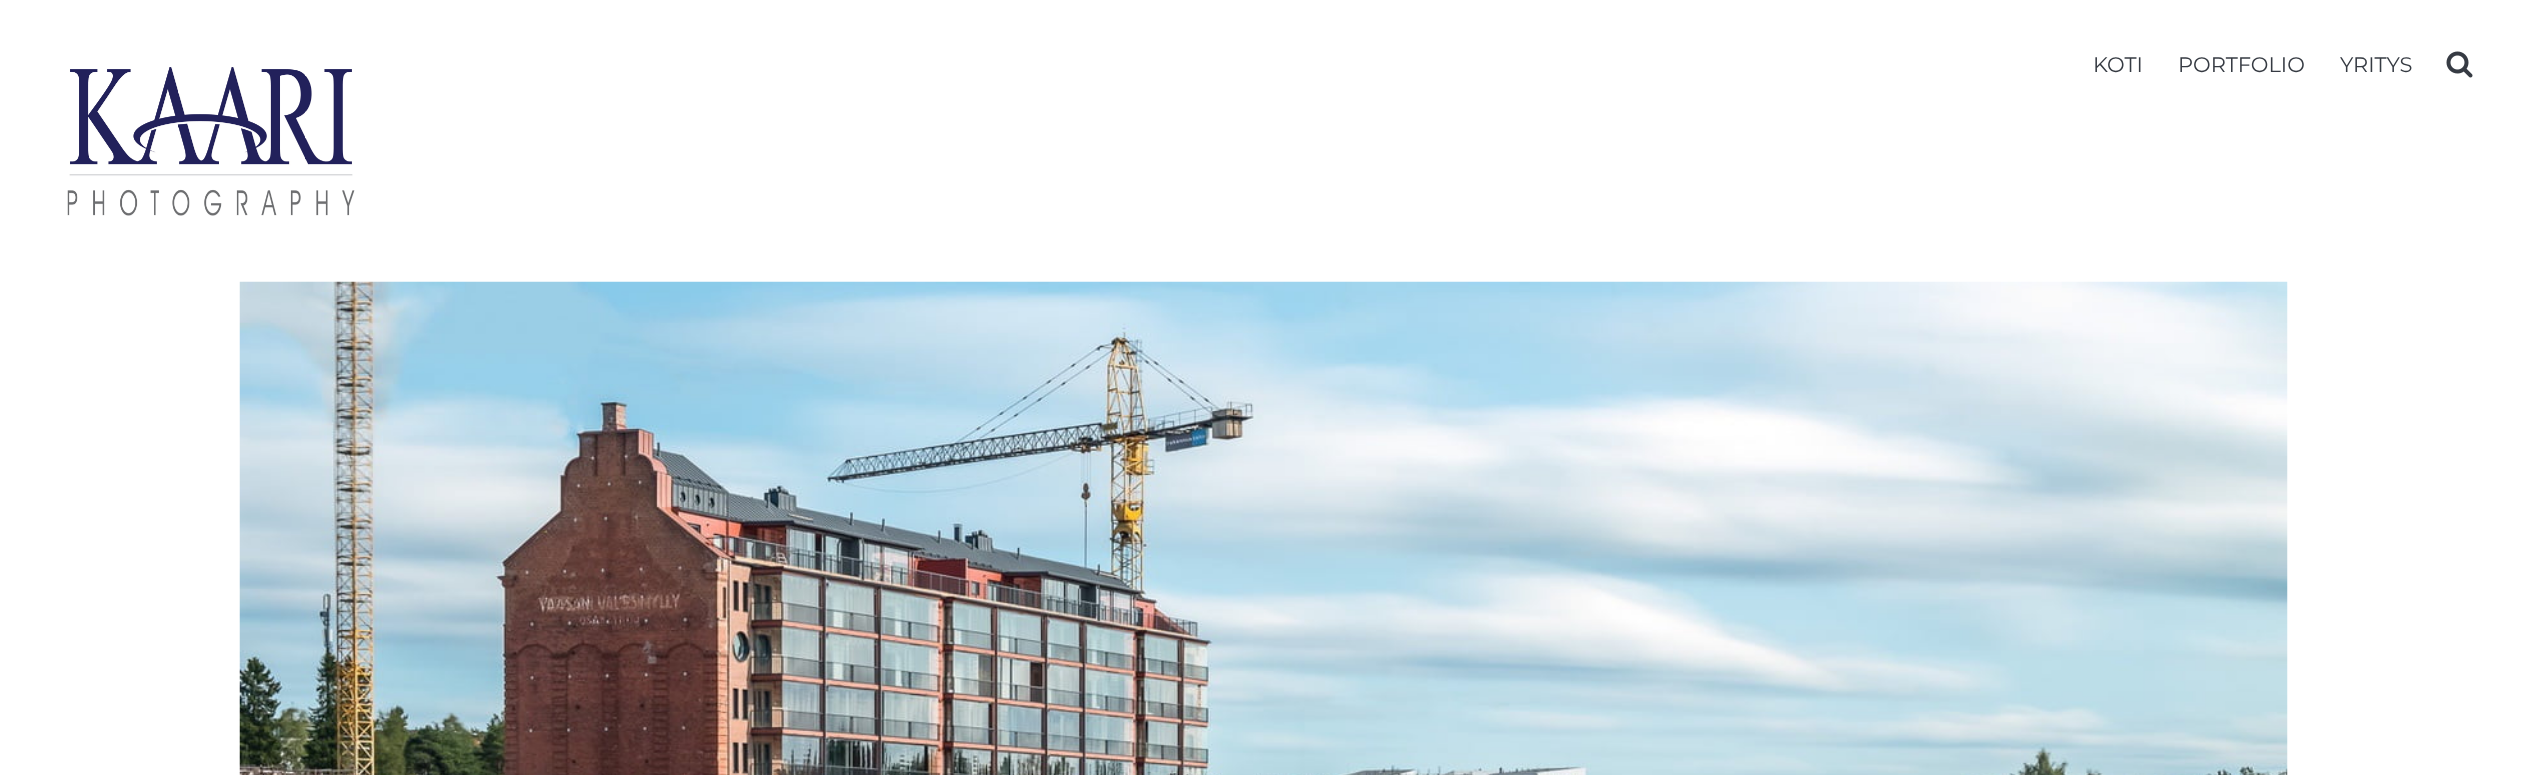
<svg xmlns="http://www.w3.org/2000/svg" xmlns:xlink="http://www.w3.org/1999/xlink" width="2525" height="775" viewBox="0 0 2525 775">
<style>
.cls-1{font:100 21px Montserrat;fill:#363b43}
</style>
<rect width="100%" height="100%" fill="#ffffff"/>
<image xlink:href="image0.png" x="2446" y="51" width="27" height="27"/>
<image xlink:href="image1.png" x="67" y="67" width="288" height="149"/>
<image xlink:href="image2.png" x="239" y="281" width="2049" height="494"/>
<text class="cls-1" x="2093" y="72">KOTI</text>
<text class="cls-1" x="2178" y="72">PORTFOLIO</text>
<text class="cls-1" x="2340" y="72">YRITYS</text>
</svg>
